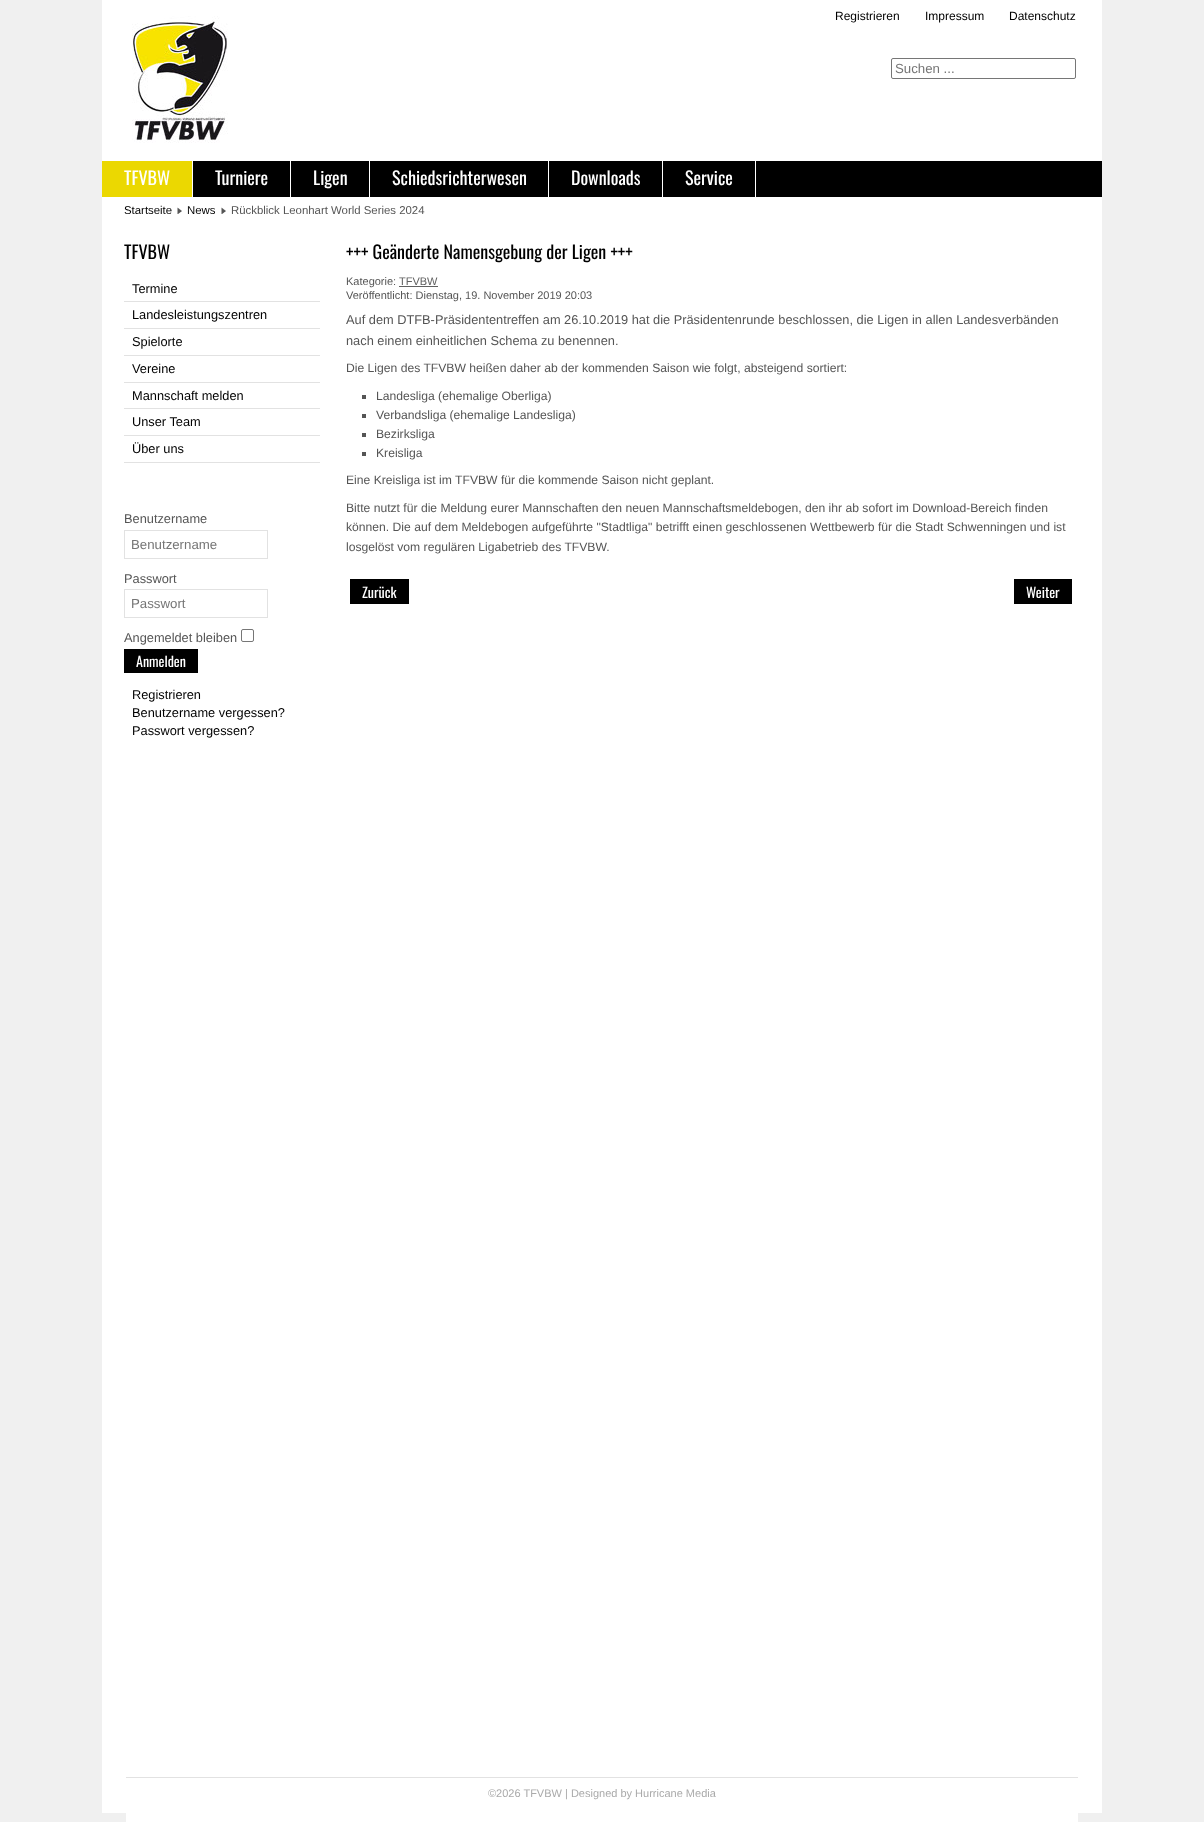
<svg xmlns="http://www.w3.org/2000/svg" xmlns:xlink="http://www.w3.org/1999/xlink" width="1204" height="1822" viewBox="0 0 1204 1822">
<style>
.cls-1{font:12px Liberation Sans;fill:#000000}
.cls-2{font:13.25px Liberation Sans;fill:#757575}
.cls-3{font:18px Oswald;fill:#ffffff}
.cls-4{font:11.4px Liberation Sans;fill:#000000}
.cls-5{font:11.4px Liberation Sans;fill:#555555}
.cls-6{font:18px Oswald;fill:#000000}
.cls-7{font:12.8px Liberation Sans;fill:#000000}
.cls-8{font:12.8px Liberation Sans;fill:#555555}
.cls-9{font:14px Oswald;fill:#ffffff}
.cls-10{font:11px Liberation Sans;fill:#555555}
.cls-11{font:11px Liberation Sans;fill:#616161}
.cls-12{font:12.15px Liberation Sans;fill:#555555}
.cls-13{font:11px Liberation Sans;fill:#aaaaaa}
</style>
<rect width="100%" height="100%" fill="#f0f0f0"/>
<rect fill="#ffffff" x="102" y="197" width="1000" height="1616"/>
<rect fill="#ffffff" x="102" y="0" width="1000" height="161"/>
<image xlink:href="image0.png" x="132" y="16" width="96" height="127"/>
<rect fill="none" stroke="#767676" x="891.5" y="58.5" width="184" height="20" rx="1.5"/>
<rect fill="#000000" x="756" y="161" width="346" height="36"/>
<rect fill="#ffffff" x="192" y="161" width="564" height="36"/>
<rect fill="#ebd801" x="102" y="161" width="90" height="36"/>
<rect fill="#000000" x="193" y="161" width="97" height="36"/>
<rect fill="#000000" x="291" y="161" width="78" height="36"/>
<rect fill="#000000" x="370" y="161" width="178" height="36"/>
<rect fill="#000000" x="549" y="161" width="113" height="36"/>
<rect fill="#000000" x="663" y="161" width="92" height="36"/>
<image xlink:href="image1.png" x="177" y="207" width="5" height="7"/>
<image xlink:href="image1.png" x="221" y="207" width="5" height="7"/>
<rect fill="#e2e2e2" x="124" y="301" width="196" height="1"/>
<rect fill="#e2e2e2" x="124" y="328" width="196" height="1"/>
<rect fill="#e2e2e2" x="124" y="355" width="196" height="1"/>
<rect fill="#e2e2e2" x="124" y="382" width="196" height="1"/>
<rect fill="#e2e2e2" x="124" y="408" width="196" height="1"/>
<rect fill="#e2e2e2" x="124" y="435" width="196" height="1"/>
<rect fill="#e2e2e2" x="124" y="462" width="196" height="1"/>
<rect fill="none" stroke="#e2e2e2" x="124.5" y="530.5" width="143" height="28"/>
<rect fill="none" stroke="#e2e2e2" x="124.5" y="589.5" width="143" height="28"/>
<rect fill="none" stroke="#767676" x="241.5" y="629.5" width="12" height="12" rx="1.5"/>
<rect fill="#000000" x="124" y="649" width="74" height="24"/>
<rect fill="#616161" x="399" y="286" width="39" height="1"/>
<rect fill="#555555" x="362" y="395" width="4" height="4"/>
<rect fill="#555555" x="362" y="414" width="4" height="4"/>
<rect fill="#555555" x="362" y="433" width="4" height="4"/>
<rect fill="#555555" x="362" y="452" width="4" height="4"/>
<rect fill="#000000" x="350" y="579" width="59" height="25"/>
<rect fill="#000000" x="1014" y="579" width="58" height="25"/>
<rect fill="#ffffff" x="126" y="1813" width="952" height="9"/>
<rect fill="#e2e2e2" x="126" y="1777" width="952" height="1"/>
<text class="cls-1" x="835" y="20">Registrieren</text>
<text class="cls-1" x="925" y="20">Impressum</text>
<text class="cls-1" x="1009" y="20">Datenschutz</text>
<text class="cls-2" x="895" y="73">Suchen ...</text>
<text class="cls-3" x="124" y="185">TFVBW</text>
<text class="cls-3" x="215" y="185">Turniere</text>
<text class="cls-3" x="313" y="185">Ligen</text>
<text class="cls-3" x="392" y="185">Schiedsrichterwesen</text>
<text class="cls-3" x="571" y="185">Downloads</text>
<text class="cls-3" x="685" y="185">Service</text>
<text class="cls-4" x="124" y="214">Startseite</text>
<text class="cls-4" x="187" y="214">News</text>
<text class="cls-5" x="231" y="214">Rückblick Leonhart World Series 2024</text>
<text class="cls-6" x="124" y="259">TFVBW</text>
<text class="cls-7" x="132" y="293">Termine</text>
<text class="cls-7" x="132" y="319">Landesleistungszentren</text>
<text class="cls-7" x="132" y="346">Spielorte</text>
<text class="cls-7" x="132" y="373">Vereine</text>
<text class="cls-7" x="132" y="400">Mannschaft melden</text>
<text class="cls-7" x="132" y="426">Unser Team</text>
<text class="cls-7" x="132" y="453">Über uns</text>
<text class="cls-8" x="124" y="523">Benutzername</text>
<text class="cls-2" x="131" y="549">Benutzername</text>
<text class="cls-8" x="124" y="583">Passwort</text>
<text class="cls-2" x="131" y="608">Passwort</text>
<text class="cls-8" x="124" y="642">Angemeldet bleiben</text>
<text class="cls-9" x="136" y="667">Anmelden</text>
<text class="cls-7"><tspan x="132" y="699">Registrieren</tspan><tspan x="132" y="717">Benutzername vergessen?</tspan><tspan x="132" y="735">Passwort vergessen?</tspan></text>
<text class="cls-6" x="346" y="259">+++ Geänderte Namensgebung der Ligen +++</text>
<text class="cls-10" x="346" y="285">Kategorie:</text>
<text class="cls-11" x="399" y="285">TFVBW</text>
<text class="cls-10" x="346" y="299">Veröffentlicht: Dienstag, 19. November 2019 20:03</text>
<text class="cls-8"><tspan x="346" y="324">Auf dem DTFB-Präsidententreffen am 26.10.2019 hat die Präsidentenrunde beschlossen, die Ligen in allen Landesverbänden</tspan><tspan x="346" y="345">nach einem einheitlichen Schema zu benennen.</tspan></text>
<text class="cls-12" x="346" y="372">Die Ligen des TFVBW heißen daher ab der kommenden Saison wie folgt, absteigend sortiert:</text>
<text class="cls-12"><tspan x="376" y="400">Landesliga (ehemalige Oberliga)</tspan><tspan x="376" y="419">Verbandsliga (ehemalige Landesliga)</tspan><tspan x="376" y="438">Bezirksliga</tspan><tspan x="376" y="457">Kreisliga</tspan></text>
<text class="cls-12" x="346" y="484">Eine Kreisliga ist im TFVBW für die kommende Saison nicht geplant.</text>
<text class="cls-12"><tspan x="346" y="512">Bitte nutzt für die Meldung eurer Mannschaften den neuen Mannschaftsmeldebogen, den ihr ab sofort im Download-Bereich finden</tspan><tspan x="346" y="531">können. Die auf dem Meldebogen aufgeführte "Stadtliga" betrifft einen geschlossenen Wettbewerb für die Stadt Schwenningen und ist</tspan><tspan x="346" y="551">losgelöst vom regulären Ligabetrieb des TFVBW.</tspan></text>
<text class="cls-9" x="362" y="598">Zurück</text>
<text class="cls-9" x="1026" y="598">Weiter</text>
<text class="cls-13" x="488" y="1797">©2026 TFVBW | Designed by Hurricane Media</text>
</svg>
